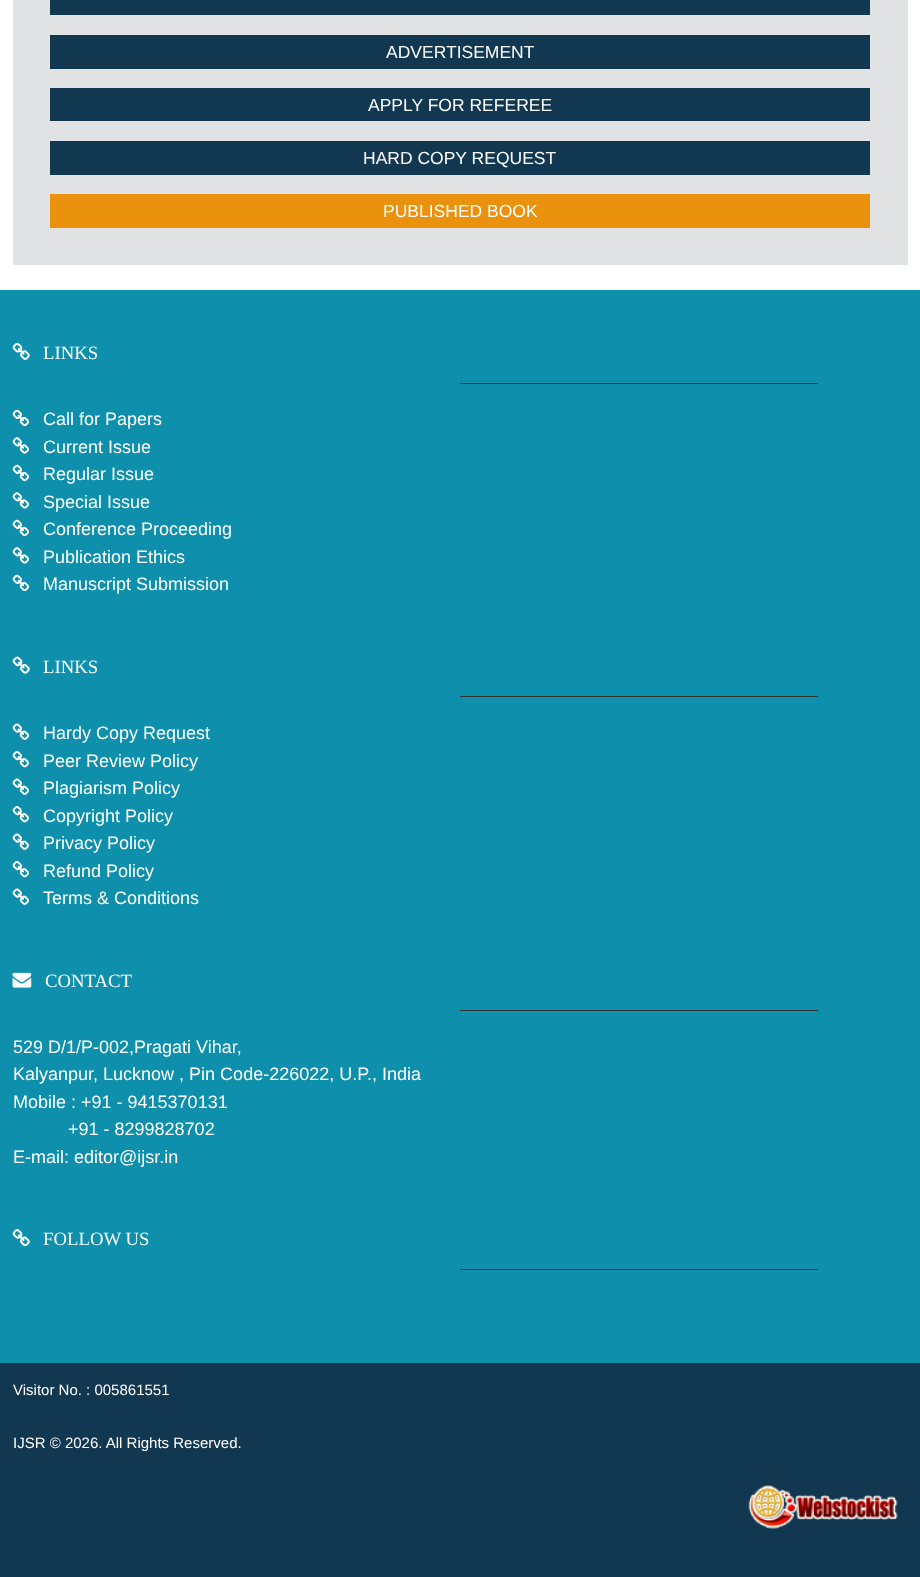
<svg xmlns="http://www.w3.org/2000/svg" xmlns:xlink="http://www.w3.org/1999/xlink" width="920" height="1577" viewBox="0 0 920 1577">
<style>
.cls-1{font:17.5px Liberation Sans;fill:#ffffff}
.cls-2{font:18.75px Liberation Serif;fill:#ffffff}
.cls-3{font:18px Liberation Sans;fill:#ffffff}
.cls-4{font:15px Liberation Sans;fill:#ffffff}
</style>
<rect width="100%" height="100%" fill="#ffffff"/>
<rect fill="#e0e2e4" x="13" y="0" width="895" height="265"/>
<rect fill="#123751" x="50" y="0" width="820" height="15"/>
<rect fill="#123751" x="50" y="35" width="820" height="34"/>
<rect fill="#123751" x="50" y="88" width="820" height="33"/>
<rect fill="#123751" x="50" y="141" width="820" height="34"/>
<rect fill="#ea920d" x="50" y="194" width="820" height="34"/>
<rect fill="#0e8fab" x="0" y="290" width="920" height="1073"/>
<rect fill="#333333" x="460" y="383" width="358" height="1"/>
<image xlink:href="image0.png" x="12" y="342" width="18" height="18"/>
<image xlink:href="image1.png" x="12" y="409" width="17" height="18"/>
<image xlink:href="image2.png" x="12" y="437" width="17" height="17"/>
<image xlink:href="image1.png" x="12" y="464" width="17" height="18"/>
<image xlink:href="image2.png" x="12" y="492" width="17" height="17"/>
<image xlink:href="image1.png" x="12" y="519" width="17" height="18"/>
<image xlink:href="image2.png" x="12" y="547" width="17" height="17"/>
<image xlink:href="image1.png" x="12" y="574" width="17" height="18"/>
<rect fill="#333333" x="460" y="696" width="358" height="1"/>
<image xlink:href="image3.png" x="12" y="656" width="18" height="18"/>
<image xlink:href="image4.png" x="12" y="723" width="17" height="17"/>
<image xlink:href="image5.png" x="12" y="751" width="17" height="17"/>
<image xlink:href="image4.png" x="12" y="778" width="17" height="17"/>
<image xlink:href="image5.png" x="12" y="806" width="17" height="17"/>
<image xlink:href="image4.png" x="12" y="833" width="17" height="17"/>
<image xlink:href="image5.png" x="12" y="861" width="17" height="17"/>
<image xlink:href="image4.png" x="12" y="888" width="17" height="17"/>
<rect fill="#333333" x="460" y="1010" width="358" height="1"/>
<image xlink:href="image6.png" x="12" y="972" width="20" height="16"/>
<rect fill="#333333" x="460" y="1269" width="358" height="1"/>
<image xlink:href="image7.png" x="12" y="1229" width="18" height="18"/>
<rect fill="#123751" x="0" y="1364" width="920" height="213"/>
<rect fill="#292929" x="0" y="1363" width="920" height="1"/>
<image xlink:href="image8.png" x="748" y="1485" width="150" height="44"/>
<text class="cls-1" x="386" y="58">ADVERTISEMENT</text>
<text class="cls-1" x="368" y="111">APPLY FOR REFEREE</text>
<text class="cls-1" x="363" y="164">HARD COPY REQUEST</text>
<text class="cls-1" x="383" y="217">PUBLISHED BOOK</text>
<text class="cls-2" x="43" y="359">LINKS</text>
<text class="cls-3"><tspan x="43" y="425">Call for Papers</tspan><tspan x="43" y="453">Current Issue</tspan><tspan x="43" y="480">Regular Issue</tspan><tspan x="43" y="508">Special Issue</tspan><tspan x="43" y="535">Conference Proceeding</tspan><tspan x="43" y="563">Publication Ethics</tspan><tspan x="43" y="590">Manuscript Submission</tspan></text>
<text class="cls-2" x="43" y="673">LINKS</text>
<text class="cls-3"><tspan x="43" y="739">Hardy Copy Request</tspan><tspan x="43" y="767">Peer Review Policy</tspan><tspan x="43" y="794">Plagiarism Policy</tspan><tspan x="43" y="822">Copyright Policy</tspan><tspan x="43" y="849">Privacy Policy</tspan><tspan x="43" y="877">Refund Policy</tspan><tspan x="43" y="904">Terms &amp; Conditions</tspan></text>
<text class="cls-2" x="45" y="987">CONTACT</text>
<text class="cls-3"><tspan x="13" y="1053">529 D/1/P-002,Pragati Vihar,</tspan><tspan x="13" y="1080">Kalyanpur, Lucknow , Pin Code-226022, U.P., India</tspan><tspan x="13" y="1108">Mobile : +91 - 9415370131</tspan></text>
<text class="cls-3" x="68" y="1135">+91 - 8299828702</text>
<text class="cls-3" x="13" y="1163">E-mail: editor@ijsr.in</text>
<text class="cls-2" x="43" y="1245">FOLLOW US</text>
<text class="cls-4" x="13" y="1395">Visitor No. : 005861551</text>
<text class="cls-4" x="13" y="1448">IJSR © 2026. All Rights Reserved.</text>
</svg>
